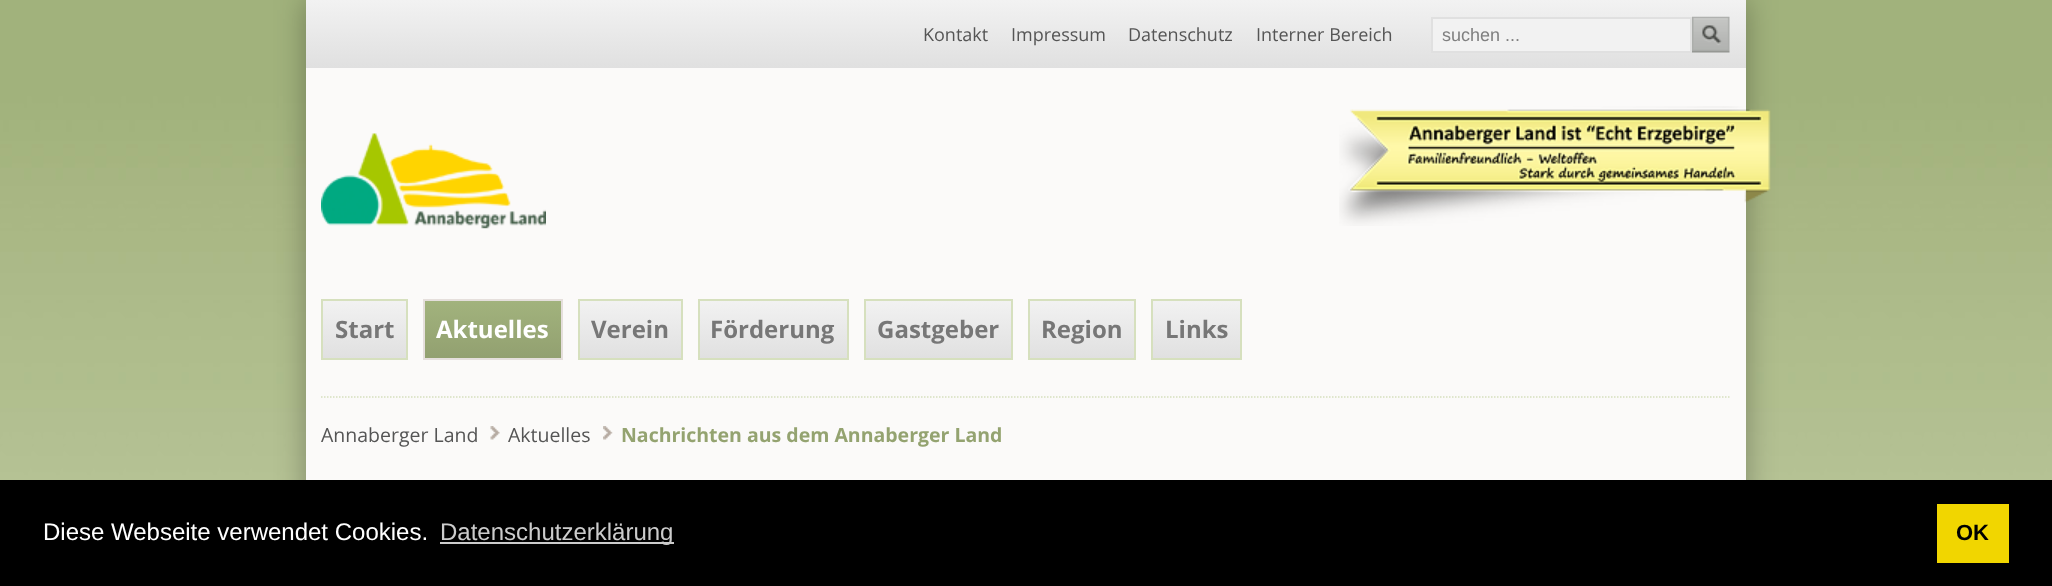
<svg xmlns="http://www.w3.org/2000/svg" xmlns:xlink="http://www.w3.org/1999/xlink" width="2052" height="586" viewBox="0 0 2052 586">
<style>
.cls-1{font:18px Open Sans;fill:#555555}
.cls-2{font:18px Liberation Sans;fill:#808080}
.cls-3{font:bold 24px Open Sans;fill:#777777}
.cls-4{font:bold 24px Open Sans;fill:#ffffff}
.cls-5{font:19.5px Open Sans;fill:#555555}
.cls-6{font:bold 19.5px Open Sans;fill:#94a370}
.cls-7{font:24px Liberation Sans;fill:#ffffff}
.cls-8{font:24px Liberation Sans;fill:#cccccc}
.cls-9{font:bold 22px Liberation Sans;fill:#000000}
</style>
<defs>
<linearGradient id="g1" gradientUnits="userSpaceOnUse" x1="1026" y1="0" x2="1026" y2="68"><stop offset="0" stop-color="#f2f2f2"/><stop offset="1" stop-color="#e0e0e0"/></linearGradient>
<linearGradient id="g2" gradientUnits="userSpaceOnUse" x1="365" y1="300" x2="365" y2="359"><stop offset="0" stop-color="#f2f2f2"/><stop offset="1" stop-color="#e0e0e0"/></linearGradient>
<linearGradient id="g3" gradientUnits="userSpaceOnUse" x1="493" y1="300" x2="493" y2="359"><stop offset="0" stop-color="#a2b37d"/><stop offset="1" stop-color="#92a070"/></linearGradient>
<linearGradient id="g4" gradientUnits="userSpaceOnUse" x1="630" y1="300" x2="630" y2="359"><stop offset="0" stop-color="#f2f2f2"/><stop offset="1" stop-color="#e0e0e0"/></linearGradient>
<linearGradient id="g5" gradientUnits="userSpaceOnUse" x1="773" y1="300" x2="773" y2="359"><stop offset="0" stop-color="#f2f2f2"/><stop offset="1" stop-color="#e0e0e0"/></linearGradient>
<linearGradient id="g6" gradientUnits="userSpaceOnUse" x1="938" y1="300" x2="938" y2="359"><stop offset="0" stop-color="#f2f2f2"/><stop offset="1" stop-color="#e0e0e0"/></linearGradient>
<linearGradient id="g7" gradientUnits="userSpaceOnUse" x1="1082" y1="300" x2="1082" y2="359"><stop offset="0" stop-color="#f2f2f2"/><stop offset="1" stop-color="#e0e0e0"/></linearGradient>
<linearGradient id="g8" gradientUnits="userSpaceOnUse" x1="1196" y1="300" x2="1196" y2="359"><stop offset="0" stop-color="#f2f2f2"/><stop offset="1" stop-color="#e0e0e0"/></linearGradient>
</defs>
<rect width="100%" height="100%" fill="#ffffff"/>
<image xlink:href="image0.png" x="0" y="0" width="2052" height="480"/>
<rect fill="#000000" fill-opacity="0.3" filter="blur(15px)" x="306" y="0" width="1440" height="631"/>
<rect fill="#fbfaf9" x="306" y="68" width="1440" height="412"/>
<rect fill="url(#g1)" x="306" y="0" width="1440" height="68"/>
<rect fill="#f2f2f2" stroke="#e0e0e0" stroke-width="2" x="1432" y="18" width="259" height="34"/>
<image xlink:href="image1.png" x="1692" y="16" width="38" height="37"/>
<image xlink:href="image2.png" x="321" y="133" width="225" height="96"/>
<image xlink:href="image3.png" x="1339" y="106" width="432" height="120"/>
<rect fill="url(#g2)" x="323" y="301" width="83" height="57"/>
<rect fill="none" stroke="#d6e0be" stroke-width="2" x="322" y="300" width="85" height="59"/>
<rect fill="url(#g3)" x="425" y="301" width="136" height="57"/>
<rect fill="none" stroke="#e5dfdc" stroke-width="2" x="424" y="300" width="138" height="59"/>
<rect fill="url(#g4)" x="580" y="301" width="101" height="57"/>
<rect fill="none" stroke="#d6e0be" stroke-width="2" x="579" y="300" width="103" height="59"/>
<rect fill="url(#g5)" x="700" y="301" width="147" height="57"/>
<rect fill="none" stroke="#d6e0be" stroke-width="2" x="699" y="300" width="149" height="59"/>
<rect fill="url(#g6)" x="866" y="301" width="145" height="57"/>
<rect fill="none" stroke="#d6e0be" stroke-width="2" x="865" y="300" width="147" height="59"/>
<rect fill="url(#g7)" x="1030" y="301" width="104" height="57"/>
<rect fill="none" stroke="#d6e0be" stroke-width="2" x="1029" y="300" width="106" height="59"/>
<rect fill="url(#g8)" x="1153" y="301" width="87" height="57"/>
<rect fill="none" stroke="#d6e0be" stroke-width="2" x="1152" y="300" width="89" height="59"/>
<path fill="none" stroke="#d6e0be" stroke-width="1.5" stroke-dasharray="1.5 1.5" d="M321 397H1731"/>
<image xlink:href="image4.png" x="490" y="426" width="10" height="14"/>
<image xlink:href="image5.png" x="603" y="426" width="10" height="14"/>
<rect fill="#000000" x="0" y="480" width="2052" height="106"/>
<rect fill="#cccccc" x="440" y="542" width="234" height="2"/>
<rect fill="#f1d600" x="1937" y="504" width="72" height="59"/>
<text class="cls-1" x="923" y="41">Kontakt</text>
<text class="cls-1" x="1011" y="41">Impressum</text>
<text class="cls-1" x="1128" y="41">Datenschutz</text>
<text class="cls-1" x="1256" y="41">Interner Bereich</text>
<text class="cls-2" x="1442" y="41">suchen ...</text>
<text class="cls-3" x="335" y="338">Start</text>
<text class="cls-4" x="436" y="338">Aktuelles</text>
<text class="cls-3" x="591" y="338">Verein</text>
<text class="cls-3" x="710" y="338">Förderung</text>
<text class="cls-3" x="877" y="338">Gastgeber</text>
<text class="cls-3" x="1041" y="338">Region</text>
<text class="cls-3" x="1165" y="338">Links</text>
<text class="cls-5" x="321" y="442">Annaberger Land</text>
<text class="cls-5" x="508" y="442">Aktuelles</text>
<text class="cls-6" x="621" y="442">Nachrichten aus dem Annaberger Land</text>
<text class="cls-7" x="43" y="540">Diese Webseite verwendet Cookies.</text>
<text class="cls-8" x="440" y="540">Datenschutzerklärung</text>
<text class="cls-9" x="1956" y="540">OK</text>
</svg>
